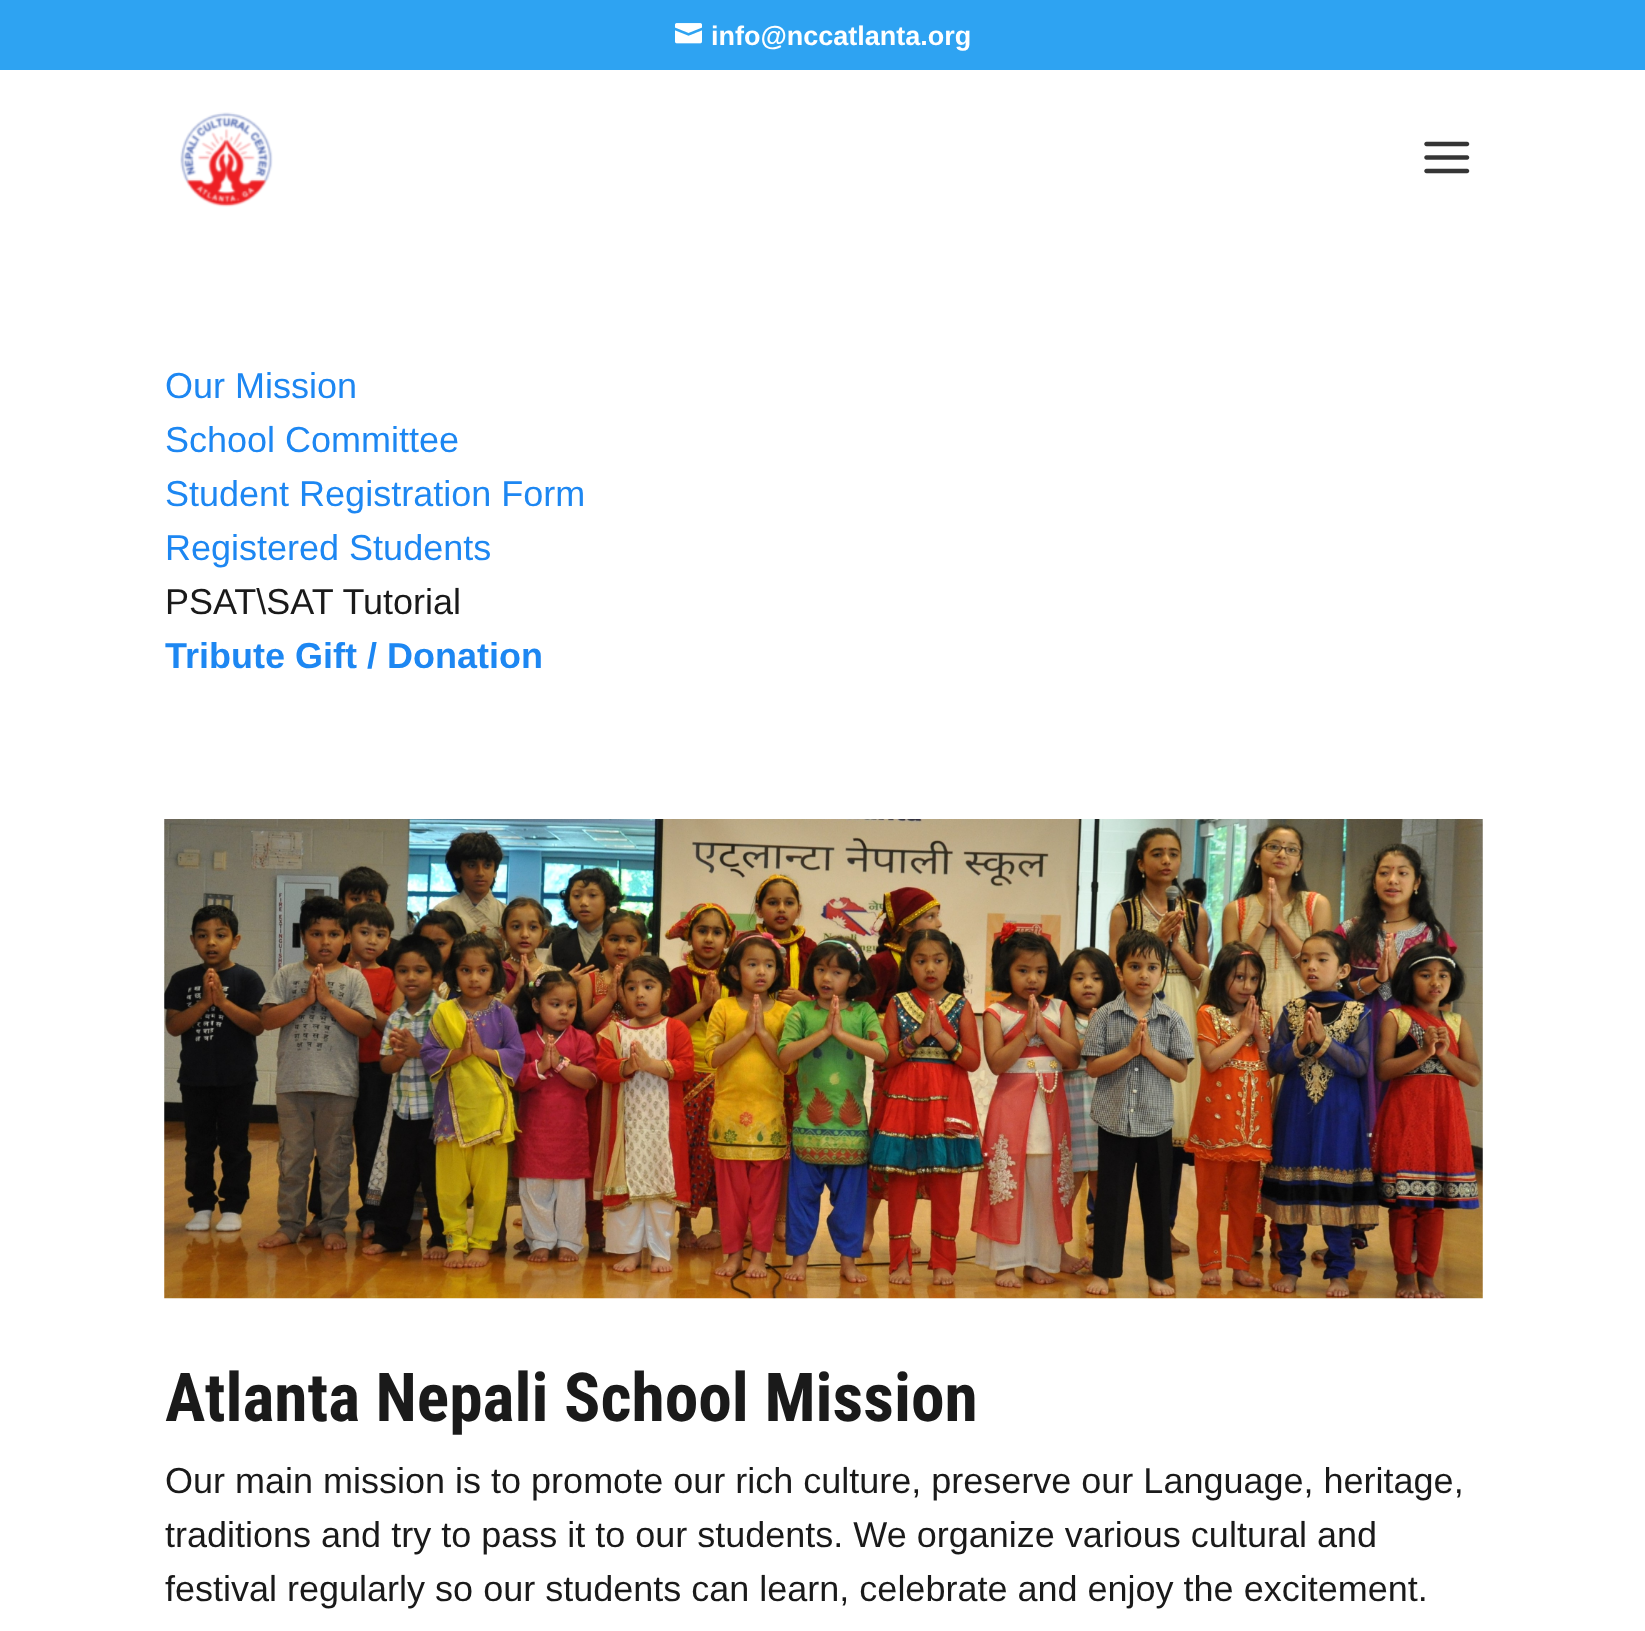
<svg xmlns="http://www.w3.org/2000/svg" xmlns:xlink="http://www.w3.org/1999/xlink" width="1645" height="1631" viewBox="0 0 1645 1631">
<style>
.cls-1{font:bold 27px Liberation Sans;fill:#ffffff}
.cls-2{font:36px Liberation Sans;fill:#1d87f2}
.cls-3{font:36px Liberation Sans;fill:#1a1a1a}
.cls-4{font:bold 36px Liberation Sans;fill:#1d87f2}
.cls-5{font:bold 67.5px Roboto Condensed;fill:#1a1a1a}
</style>
<rect width="100%" height="100%" fill="#ffffff"/>
<rect fill="#2ea3f2" x="0" y="0" width="1645" height="70"/>
<image xlink:href="image0.png" x="675" y="23" width="27" height="21"/>
<image xlink:href="image1.png" x="180" y="112" width="93" height="95"/>
<image xlink:href="image2.png" x="1424" y="141" width="46" height="33"/>
<image xlink:href="image3.png" x="164" y="819" width="1319" height="480"/>
<text class="cls-1" x="711" y="45">info@nccatlanta.org</text>
<text class="cls-2"><tspan x="165" y="398">Our Mission</tspan><tspan x="165" y="452">School Committee</tspan><tspan x="165" y="506">Student Registration Form</tspan><tspan x="165" y="560">Registered Students</tspan></text>
<text class="cls-3" x="165" y="614">PSAT\SAT Tutorial</text>
<text class="cls-4" x="165" y="668">Tribute Gift / Donation</text>
<text class="cls-5" x="165" y="1421">Atlanta Nepali School Mission</text>
<text class="cls-3"><tspan x="165" y="1493">Our main mission is to promote our rich culture, preserve our Language, heritage,</tspan><tspan x="165" y="1547">traditions and try to pass it to our students. We organize various cultural and</tspan><tspan x="165" y="1601">festival regularly so our students can learn, celebrate and enjoy the excitement.</tspan></text>
</svg>
